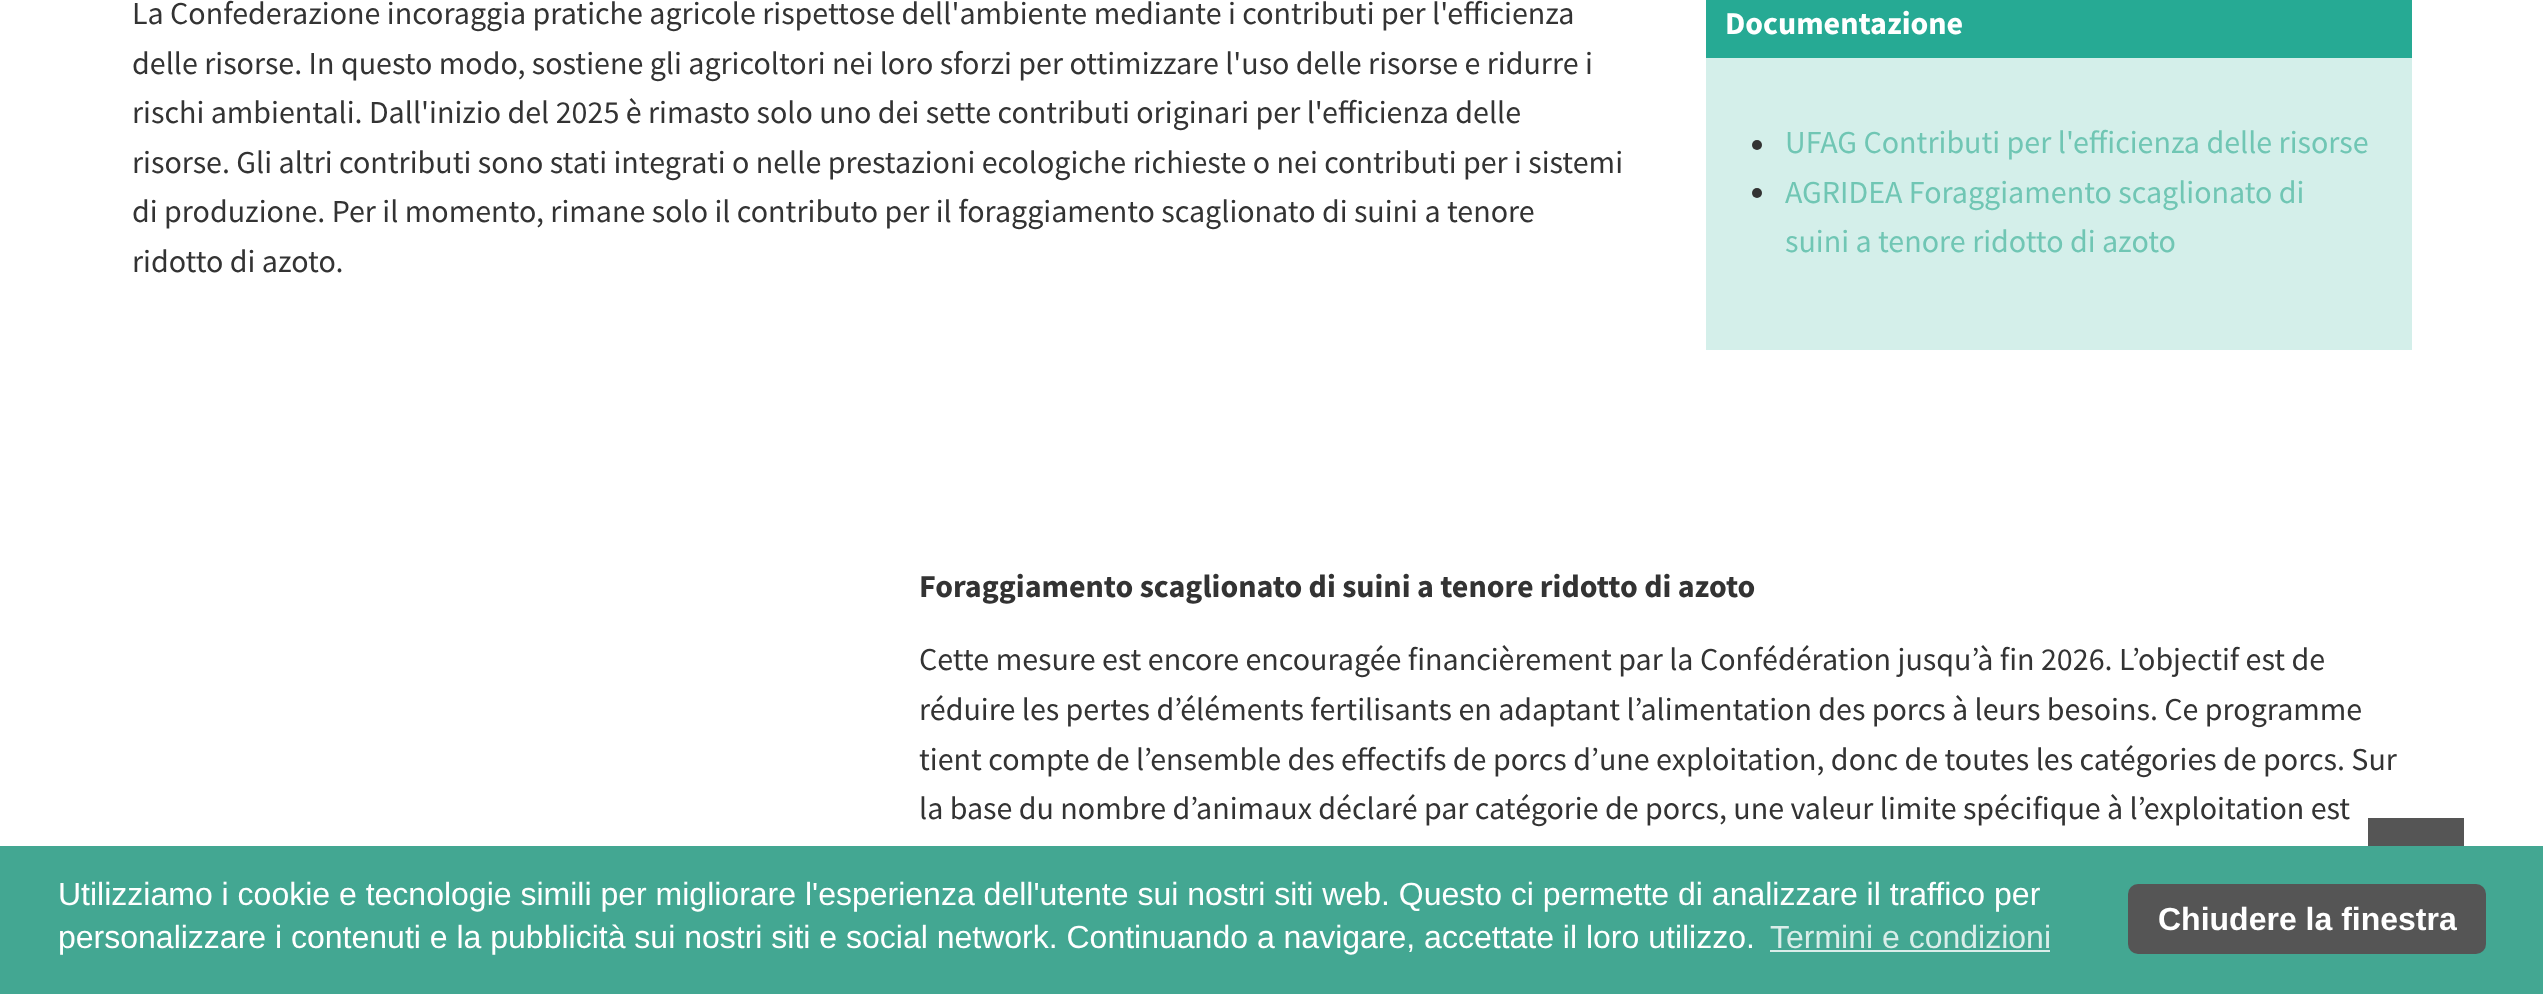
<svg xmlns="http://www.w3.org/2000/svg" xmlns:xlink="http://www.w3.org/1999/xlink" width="2543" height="994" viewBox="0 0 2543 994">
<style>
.cls-1{font:32px Source Sans Pro;fill:#333333}
.cls-2{font:bold 32px Source Sans Pro;fill:#ffffff}
.cls-3{font:32px Source Sans Pro;fill:#70c6b4}
.cls-4{font:bold 32px Source Sans Pro;fill:#333333}
.cls-5{font:32px Liberation Sans;fill:#ffffff}
.cls-6{font:32px Liberation Sans;fill:#d9ede9}
.cls-7{font:bold 32px Liberation Sans;fill:#ffffff}
</style>
<rect width="100%" height="100%" fill="#ffffff"/>
<rect fill="#d4efea" x="1706" y="58" width="706" height="292"/>
<rect fill="#26aa94" x="1706" y="0" width="706" height="58"/>
<circle fill="#333333" cx="1757" cy="145" r="5"/>
<circle fill="#333333" cx="1757" cy="193" r="5"/>
<rect fill="#555555" x="2368" y="818" width="96" height="28"/>
<rect fill="#43a792" x="0" y="846" width="2543" height="148"/>
<rect fill="#d9ede9" x="1770" y="950" width="280" height="2"/>
<rect fill="#555555" x="2128" y="884" width="358" height="70" rx="10"/>
<text class="cls-1"><tspan x="132" y="24">La Confederazione incoraggia pratiche agricole rispettose dell'ambiente mediante i contributi per l'efficienza</tspan><tspan x="132" y="74">delle risorse. In questo modo, sostiene gli agricoltori nei loro sforzi per ottimizzare l'uso delle risorse e ridurre i</tspan><tspan x="132" y="123">rischi ambientali. Dall'inizio del 2025 è rimasto solo uno dei sette contributi originari per l'efficienza delle</tspan><tspan x="132" y="173">risorse. Gli altri contributi sono stati integrati o nelle prestazioni ecologiche richieste o nei contributi per i sistemi</tspan><tspan x="132" y="222">di produzione. Per il momento, rimane solo il contributo per il foraggiamento scaglionato di suini a tenore</tspan><tspan x="132" y="272">ridotto di azoto.</tspan></text>
<text class="cls-2" x="1725" y="34">Documentazione</text>
<text class="cls-3"><tspan x="1785" y="153">UFAG Contributi per l'efficienza delle risorse</tspan><tspan x="1785" y="203">AGRIDEA Foraggiamento scaglionato di</tspan><tspan x="1785" y="252">suini a tenore ridotto di azoto</tspan></text>
<text class="cls-4" x="919" y="597">Foraggiamento scaglionato di suini a tenore ridotto di azoto</text>
<text class="cls-1"><tspan x="919" y="670">Cette mesure est encore encouragée financièrement par la Confédération jusqu’à fin 2026. L’objectif est de</tspan><tspan x="919" y="720">réduire les pertes d’éléments fertilisants en adaptant l’alimentation des porcs à leurs besoins. Ce programme</tspan><tspan x="919" y="770">tient compte de l’ensemble des effectifs de porcs d’une exploitation, donc de toutes les catégories de porcs. Sur</tspan><tspan x="919" y="819">la base du nombre d’animaux déclaré par catégorie de porcs, une valeur limite spécifique à l’exploitation est</tspan></text>
<text class="cls-5"><tspan x="58" y="905">Utilizziamo i cookie e tecnologie simili per migliorare l'esperienza dell'utente sui nostri siti web. Questo ci permette di analizzare il traffico per</tspan><tspan x="58" y="948">personalizzare i contenuti e la pubblicità sui nostri siti e social network. Continuando a navigare, accettate il loro utilizzo.</tspan></text>
<text class="cls-6" x="1770" y="948">Termini e condizioni</text>
<text class="cls-7" x="2158" y="930">Chiudere la finestra</text>
</svg>
